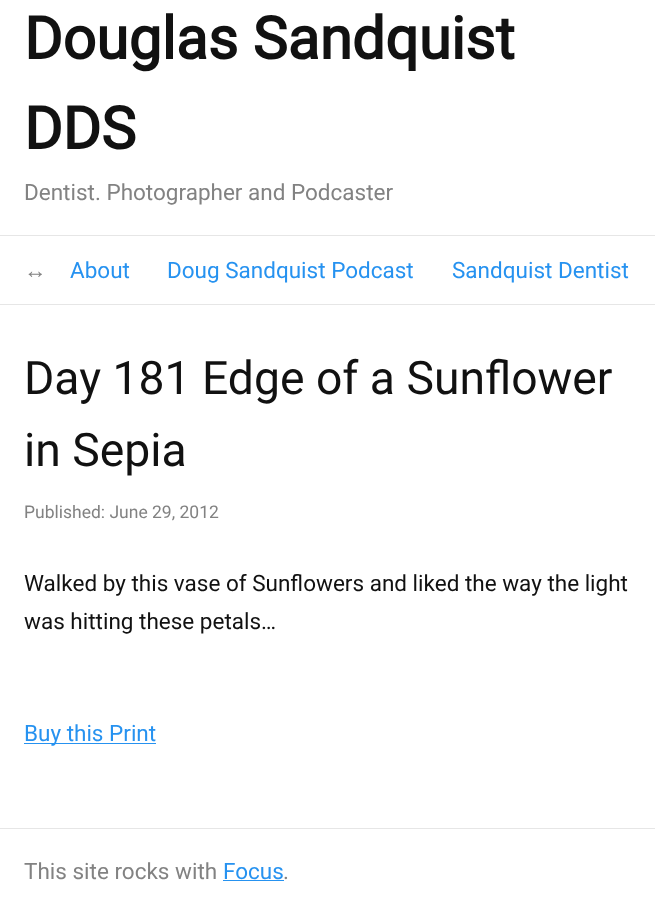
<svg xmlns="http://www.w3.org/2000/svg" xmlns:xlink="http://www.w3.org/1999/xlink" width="655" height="898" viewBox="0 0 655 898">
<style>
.cls-1{font:bold 58.75px Roboto;fill:#111111}
.cls-2{font:22.5px Roboto;fill:#828282}
.cls-3{font:22.5px Liberation Sans;fill:#828282}
.cls-4{font:22.5px Roboto;fill:#2692f0}
.cls-5{font:46.25px Roboto;fill:#111111}
.cls-6{font:17.5px Roboto;fill:#828282}
.cls-7{font:22.5px Roboto;fill:#111111}
</style>
<rect width="100%" height="100%" fill="#ffffff"/>
<rect fill="#e6e6e6" x="0" y="235" width="655" height="1"/>
<rect fill="#e6e6e6" x="0" y="304" width="655" height="1"/>
<rect fill="#2692f0" x="24" y="743" width="132" height="1"/>
<rect fill="#e6e6e6" x="0" y="828" width="655" height="1"/>
<rect fill="#2692f0" x="223" y="880" width="61" height="1"/>
<text class="cls-1"><tspan x="24" y="59">Douglas Sandquist</tspan><tspan x="24" y="149">DDS</tspan></text>
<text class="cls-2" x="24" y="200">Dentist. Photographer and Podcaster</text>
<text class="cls-3" x="24" y="278">↔</text>
<text class="cls-4" x="70" y="278">About</text>
<text class="cls-4" x="167" y="278">Doug Sandquist Podcast</text>
<text class="cls-4" x="452" y="278">Sandquist Dentist</text>
<text class="cls-5"><tspan x="24" y="394">Day 181 Edge of a Sunflower</tspan><tspan x="24" y="466">in Sepia</tspan></text>
<text class="cls-6" x="24" y="518">Published: June 29, 2012</text>
<text class="cls-7"><tspan x="24" y="591">Walked by this vase of Sunflowers and liked the way the light</tspan><tspan x="24" y="629">was hitting these petals…</tspan></text>
<text class="cls-4" x="24" y="741">Buy this Print</text>
<text class="cls-2" x="24" y="879">This site rocks with</text>
<text class="cls-4" x="223" y="879">Focus</text>
<text class="cls-2" x="283" y="879">.</text>
</svg>
